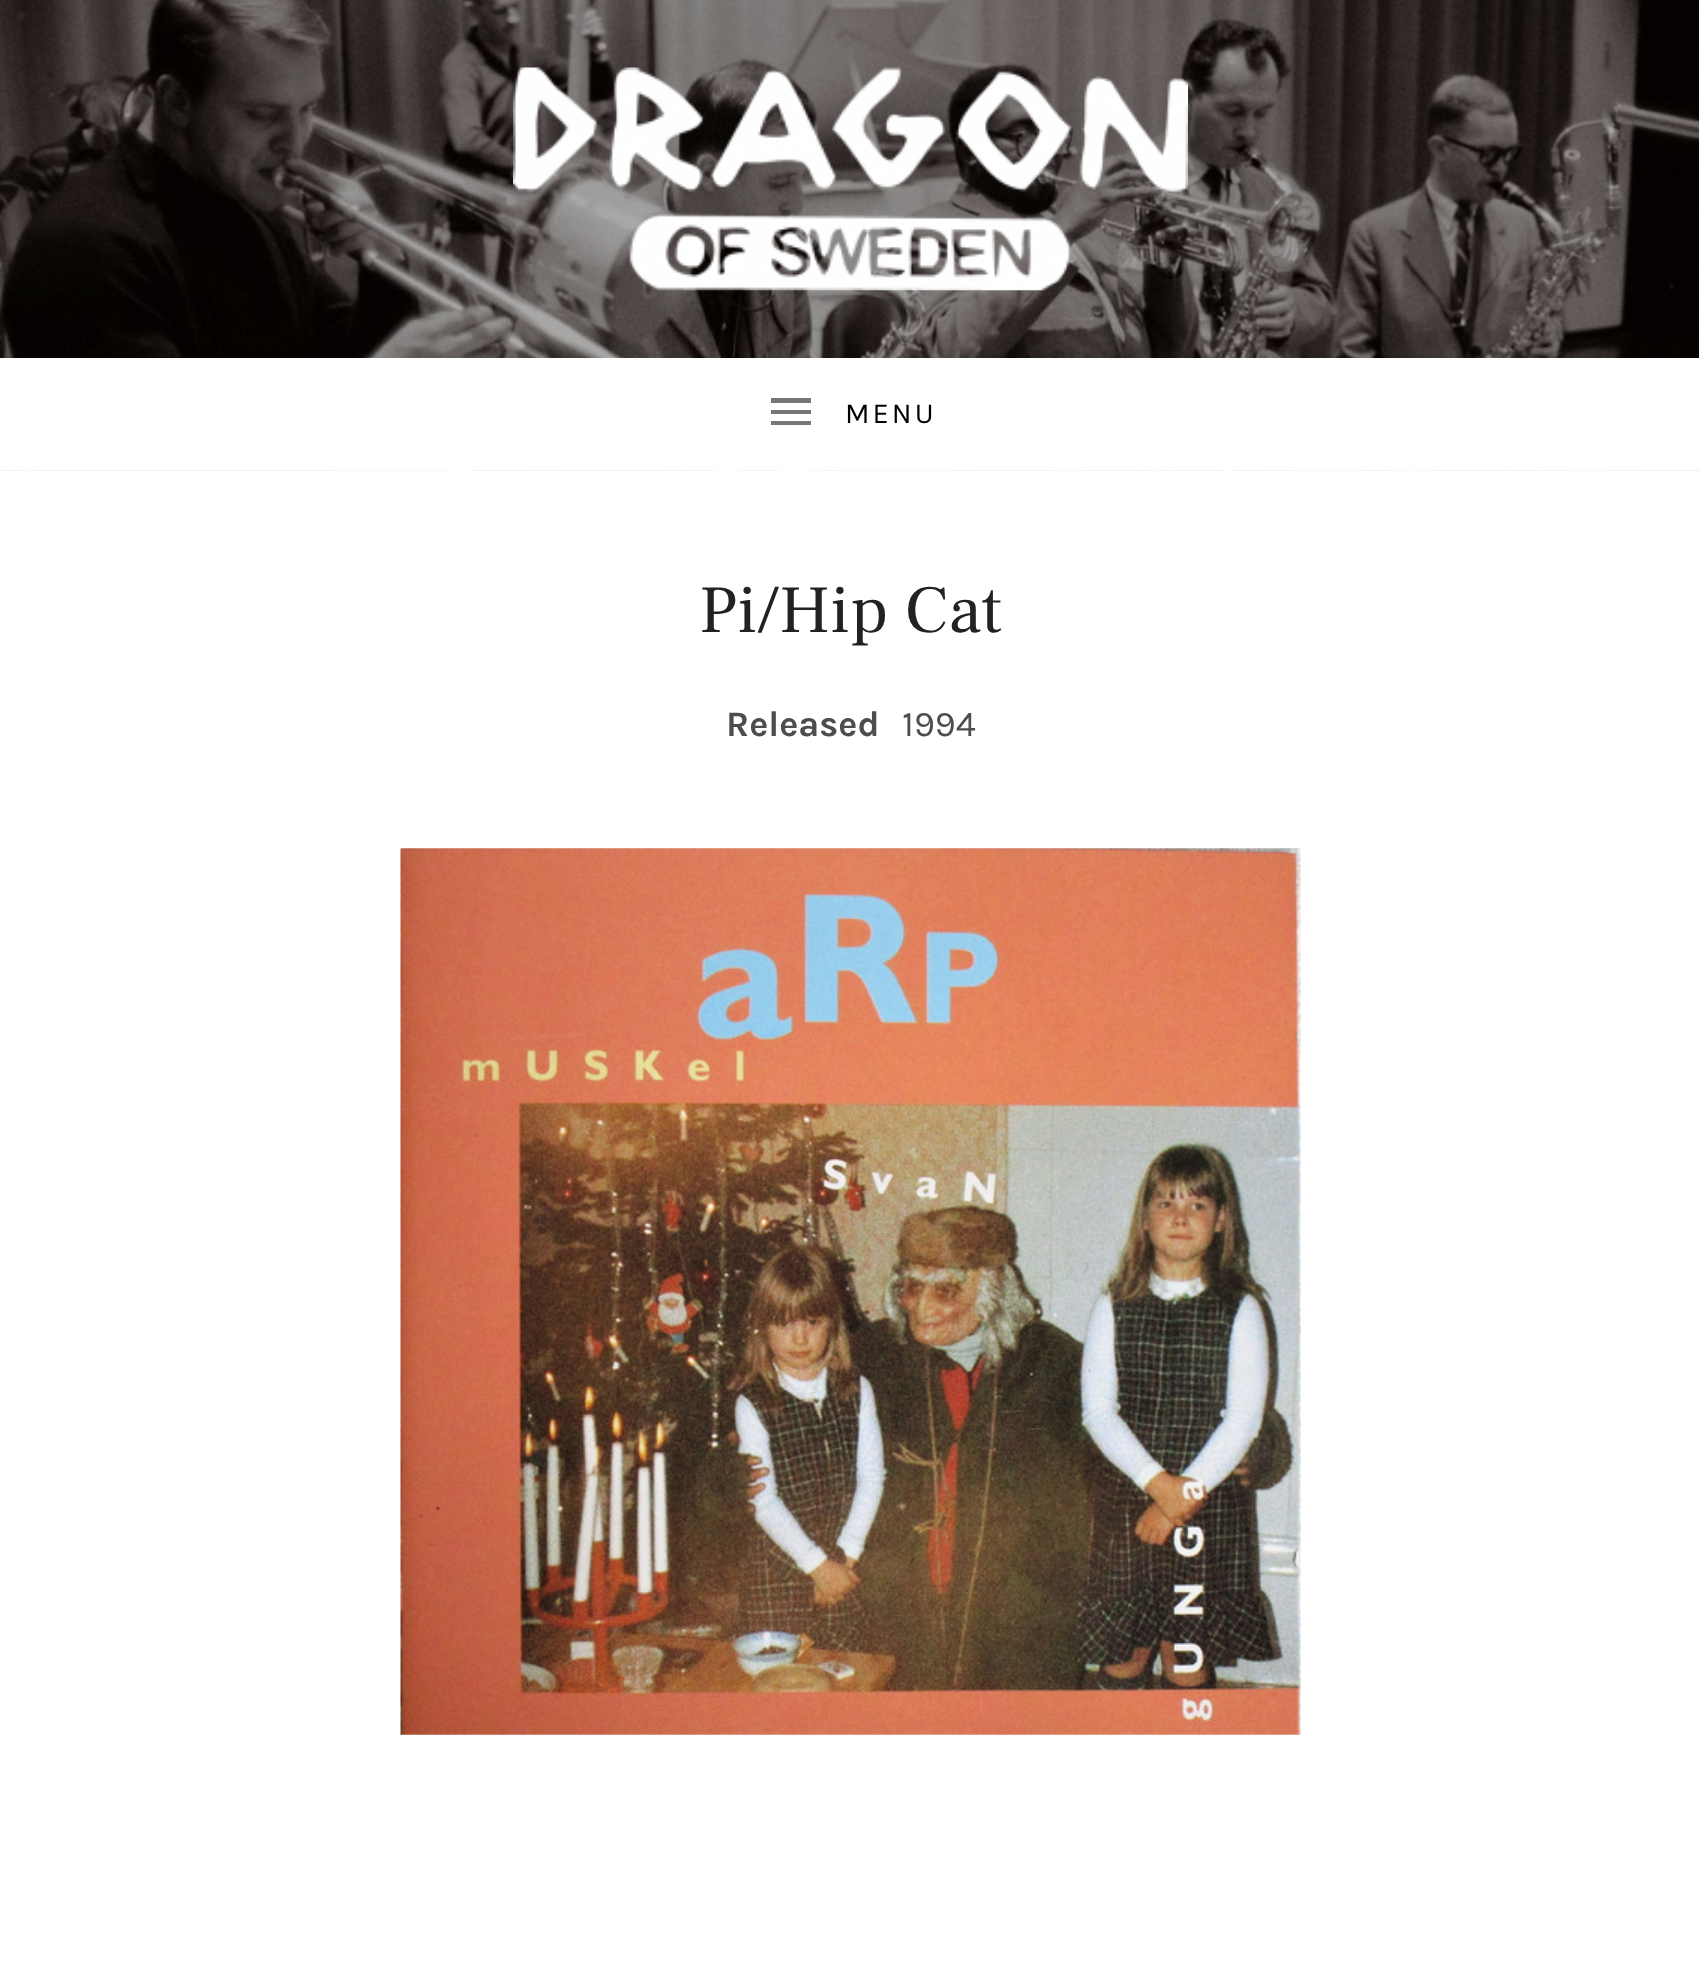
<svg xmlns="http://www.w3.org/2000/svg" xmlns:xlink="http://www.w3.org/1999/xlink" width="1699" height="1972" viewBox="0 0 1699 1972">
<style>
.cls-1{font:29px Karla;letter-spacing:3px;fill:#000000}
.cls-2{font:67.5px Frank Ruhl Libre;fill:#222222}
.cls-3{font:bold 36px Karla;fill:#4d4d4d}
.cls-4{font:36px Karla;fill:#4d4d4d}
</style>
<rect width="100%" height="100%" fill="#ffffff"/>
<image xlink:href="image0.png" x="0" y="0" width="1699" height="471"/>
<image xlink:href="image1.png" x="513" y="67" width="675" height="224"/>
<rect fill="#ffffff" x="0" y="358" width="1699" height="112"/>
<path fill="#767676" d="M771 425H811V421H771ZM771 414H811V410H771ZM771 398V403H811V398Z"/>
<image xlink:href="image2.png" x="400" y="848" width="901" height="887"/>
<text class="cls-1" x="845" y="423">MENU</text>
<text class="cls-2" x="699" y="632">Pi/Hip Cat</text>
<text class="cls-3" x="726" y="736">Released</text>
<text class="cls-4" x="902" y="736">1994</text>
</svg>
